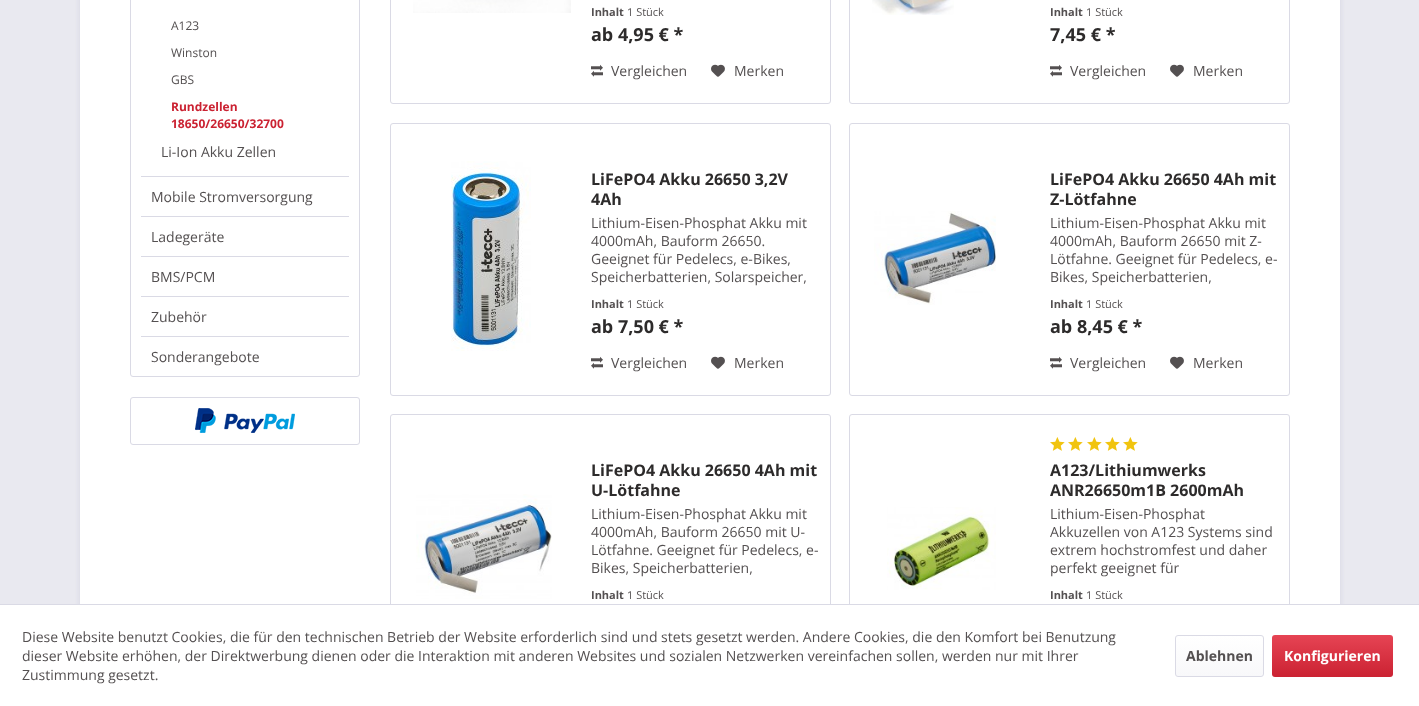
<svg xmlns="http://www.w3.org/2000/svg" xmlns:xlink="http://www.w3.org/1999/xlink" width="1419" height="706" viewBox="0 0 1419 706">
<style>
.cls-1{font:12px Open Sans;fill:#545051}
.cls-2{font:bold 12px Open Sans;fill:#cb2232}
.cls-3{font:14px Open Sans;fill:#545051}
.cls-4{font:bold 11px Open Sans;fill:#545051}
.cls-5{font:11px Open Sans;fill:#545051}
.cls-6{font:bold 18px Open Sans;fill:#2d2b2b}
.cls-7{font:bold 16px Open Sans;fill:#2d2b2b}
.cls-8{font:bold 14px Open Sans;fill:#545051}
.cls-9{font:bold 14px Open Sans;fill:#ffffff}
</style>
<defs>
<linearGradient id="g1" gradientUnits="userSpaceOnUse" x1="1220" y1="636" x2="1220" y2="676"><stop offset="0" stop-color="#ffffff"/><stop offset="1" stop-color="#f8f8fa"/></linearGradient>
<linearGradient id="g2" gradientUnits="userSpaceOnUse" x1="1333" y1="635" x2="1333" y2="677"><stop offset="0" stop-color="#e64454"/><stop offset="1" stop-color="#cb2232"/></linearGradient>
</defs>
<rect width="100%" height="100%" fill="#e9e9f0"/>
<rect fill="#dadae5" filter="blur(2px)" x="79" y="-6" width="1262" height="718"/>
<rect fill="#ffffff" x="80" y="0" width="1260" height="604"/>
<rect fill="none" stroke="#dadae5" x="130.5" y="-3.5" width="229" height="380" rx="2.5"/>
<rect fill="#dadae5" x="141" y="176" width="208" height="1"/>
<rect fill="#dadae5" x="141" y="216" width="208" height="1"/>
<rect fill="#dadae5" x="141" y="256" width="208" height="1"/>
<rect fill="#dadae5" x="141" y="296" width="208" height="1"/>
<rect fill="#dadae5" x="141" y="336" width="208" height="1"/>
<rect fill="none" stroke="#dadae5" x="130.5" y="397.5" width="229" height="47" rx="2.5"/>
<image xlink:href="image0.png" x="195" y="408" width="100" height="25"/>
<rect fill="none" stroke="#dadae5" x="390.5" y="-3.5" width="440" height="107" rx="2.5"/>
<image xlink:href="image1.png" x="413" y="0" width="158" height="13"/>
<image xlink:href="image2.png" x="591" y="64" width="12" height="13"/>
<image xlink:href="image3.png" x="711" y="64" width="14" height="13"/>
<rect fill="none" stroke="#dadae5" x="849.5" y="-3.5" width="440" height="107" rx="2.5"/>
<image xlink:href="image4.png" x="872" y="0" width="82" height="15"/>
<image xlink:href="image2.png" x="1050" y="64" width="12" height="13"/>
<image xlink:href="image3.png" x="1170" y="64" width="14" height="13"/>
<rect fill="none" stroke="#dadae5" x="390.5" y="123.5" width="440" height="272" rx="2.5"/>
<image xlink:href="image5.png" x="451" y="161" width="80" height="190"/>
<image xlink:href="image2.png" x="591" y="356" width="12" height="13"/>
<image xlink:href="image3.png" x="711" y="356" width="14" height="13"/>
<rect fill="none" stroke="#dadae5" x="849.5" y="123.5" width="440" height="272" rx="2.5"/>
<image xlink:href="image6.png" x="874" y="211" width="122" height="94"/>
<image xlink:href="image2.png" x="1050" y="356" width="12" height="13"/>
<image xlink:href="image3.png" x="1170" y="356" width="14" height="13"/>
<rect fill="none" stroke="#dadae5" x="390.5" y="414.5" width="440" height="272" rx="2.5"/>
<image xlink:href="image7.png" x="416" y="494" width="136" height="105"/>
<rect fill="none" stroke="#dadae5" x="849.5" y="414.5" width="440" height="272" rx="2.5"/>
<image xlink:href="image8.png" x="1050" y="437" width="15" height="14"/>
<image xlink:href="image8.png" x="1068" y="437" width="15" height="14"/>
<image xlink:href="image8.png" x="1087" y="437" width="15" height="14"/>
<image xlink:href="image8.png" x="1105" y="437" width="15" height="14"/>
<image xlink:href="image8.png" x="1123" y="437" width="15" height="14"/>
<image xlink:href="image9.png" x="887" y="507" width="109" height="83"/>
<rect fill="#ffffff" x="0" y="605" width="1419" height="101"/>
<rect fill="#dadae5" x="0" y="604" width="1419" height="1"/>
<rect fill="url(#g1)" x="1176" y="636" width="87" height="40" rx="2"/>
<rect fill="none" stroke="#dadae5" x="1175.5" y="635.5" width="88" height="41" rx="2.5"/>
<rect fill="url(#g2)" x="1272" y="635" width="121" height="42" rx="3"/>
<text class="cls-1" x="171" y="30">A123</text>
<text class="cls-1" x="171" y="57">Winston</text>
<text class="cls-1" x="171" y="84">GBS</text>
<text class="cls-2"><tspan x="171" y="111">Rundzellen</tspan><tspan x="171" y="128">18650/26650/32700</tspan></text>
<text class="cls-3" x="161" y="157">Li-Ion Akku Zellen</text>
<text class="cls-3" x="151" y="202">Mobile Stromversorgung</text>
<text class="cls-3" x="151" y="242">Ladegeräte</text>
<text class="cls-3" x="151" y="282">BMS/PCM</text>
<text class="cls-3" x="151" y="322">Zubehör</text>
<text class="cls-3" x="151" y="362">Sonderangebote</text>
<text class="cls-4" x="591" y="16">Inhalt</text>
<text class="cls-5" x="627" y="16">1 Stück</text>
<text class="cls-6" x="591" y="41">ab 4,95 € *</text>
<text class="cls-3" x="611" y="76">Vergleichen</text>
<text class="cls-3" x="734" y="76">Merken</text>
<text class="cls-4" x="1050" y="16">Inhalt</text>
<text class="cls-5" x="1086" y="16">1 Stück</text>
<text class="cls-6" x="1050" y="41">7,45 € *</text>
<text class="cls-3" x="1070" y="76">Vergleichen</text>
<text class="cls-3" x="1193" y="76">Merken</text>
<text class="cls-7"><tspan x="591" y="185">LiFePO4 Akku 26650 3,2V</tspan><tspan x="591" y="205">4Ah</tspan></text>
<text class="cls-3"><tspan x="591" y="228">Lithium-Eisen-Phosphat Akku mit</tspan><tspan x="591" y="246">4000mAh, Bauform 26650.</tspan><tspan x="591" y="264">Geeignet für Pedelecs, e-Bikes,</tspan><tspan x="591" y="282">Speicherbatterien, Solarspeicher,</tspan></text>
<text class="cls-4" x="591" y="308">Inhalt</text>
<text class="cls-5" x="627" y="308">1 Stück</text>
<text class="cls-6" x="591" y="333">ab 7,50 € *</text>
<text class="cls-3" x="611" y="368">Vergleichen</text>
<text class="cls-3" x="734" y="368">Merken</text>
<text class="cls-7"><tspan x="1050" y="185">LiFePO4 Akku 26650 4Ah mit</tspan><tspan x="1050" y="205">Z-Lötfahne</tspan></text>
<text class="cls-3"><tspan x="1050" y="228">Lithium-Eisen-Phosphat Akku mit</tspan><tspan x="1050" y="246">4000mAh, Bauform 26650 mit Z-</tspan><tspan x="1050" y="264">Lötfahne. Geeignet für Pedelecs, e-</tspan><tspan x="1050" y="282">Bikes, Speicherbatterien,</tspan></text>
<text class="cls-4" x="1050" y="308">Inhalt</text>
<text class="cls-5" x="1086" y="308">1 Stück</text>
<text class="cls-6" x="1050" y="333">ab 8,45 € *</text>
<text class="cls-3" x="1070" y="368">Vergleichen</text>
<text class="cls-3" x="1193" y="368">Merken</text>
<text class="cls-7"><tspan x="591" y="476">LiFePO4 Akku 26650 4Ah mit</tspan><tspan x="591" y="496">U-Lötfahne</tspan></text>
<text class="cls-3"><tspan x="591" y="519">Lithium-Eisen-Phosphat Akku mit</tspan><tspan x="591" y="537">4000mAh, Bauform 26650 mit U-</tspan><tspan x="591" y="555">Lötfahne. Geeignet für Pedelecs, e-</tspan><tspan x="591" y="573">Bikes, Speicherbatterien,</tspan></text>
<text class="cls-4" x="591" y="599">Inhalt</text>
<text class="cls-5" x="627" y="599">1 Stück</text>
<text class="cls-7"><tspan x="1050" y="476">A123/Lithiumwerks</tspan><tspan x="1050" y="496">ANR26650m1B 2600mAh</tspan></text>
<text class="cls-3"><tspan x="1050" y="519">Lithium-Eisen-Phosphat</tspan><tspan x="1050" y="537">Akkuzellen von A123 Systems sind</tspan><tspan x="1050" y="555">extrem hochstromfest und daher</tspan><tspan x="1050" y="573">perfekt geeignet für</tspan></text>
<text class="cls-4" x="1050" y="599">Inhalt</text>
<text class="cls-5" x="1086" y="599">1 Stück</text>
<text class="cls-3"><tspan x="22" y="642">Diese Website benutzt Cookies, die für den technischen Betrieb der Website erforderlich sind und stets gesetzt werden. Andere Cookies, die den Komfort bei Benutzung</tspan><tspan x="22" y="661">dieser Website erhöhen, der Direktwerbung dienen oder die Interaktion mit anderen Websites und sozialen Netzwerken vereinfachen sollen, werden nur mit Ihrer</tspan><tspan x="22" y="680">Zustimmung gesetzt.</tspan></text>
<text class="cls-8" x="1186" y="661">Ablehnen</text>
<text class="cls-9" x="1284" y="661">Konfigurieren</text>
</svg>
